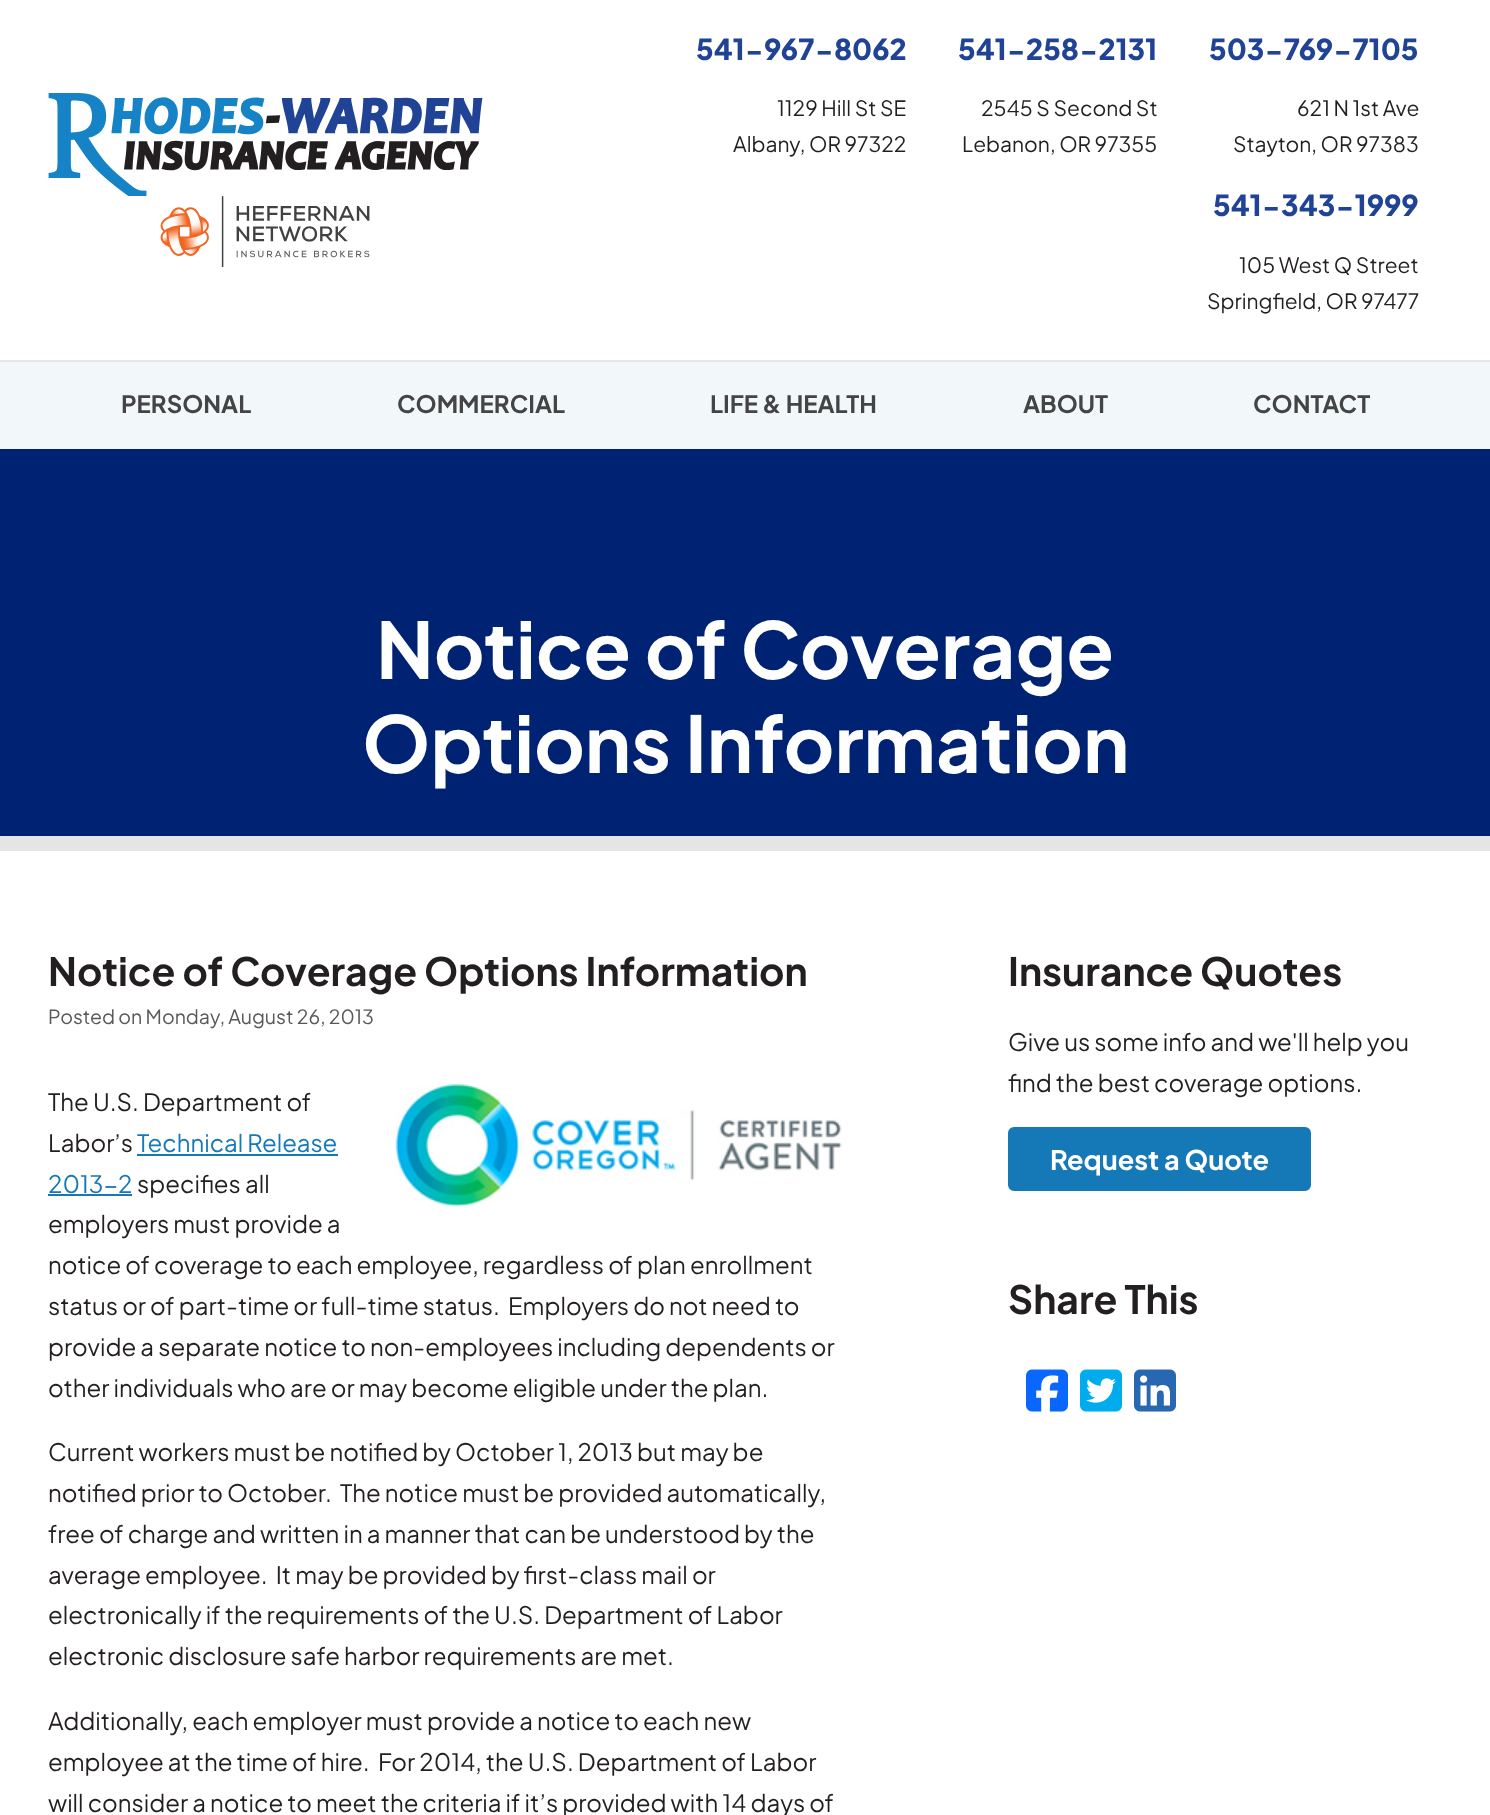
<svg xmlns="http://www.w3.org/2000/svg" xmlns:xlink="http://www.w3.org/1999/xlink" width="1490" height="1815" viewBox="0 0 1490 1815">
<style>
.cls-1{font:800 28.75px Plus Jakarta Sans;fill:#214395}
.cls-2{font:21px Plus Jakarta Sans;fill:#231f20}
.cls-3{font:bold 24px Plus Jakarta Sans;fill:#444444}
.cls-4{font:bold 78px Plus Jakarta Sans;fill:#ffffff}
.cls-5{font:bold 39px Plus Jakarta Sans;fill:#231f20}
.cls-6{font:19.5px Plus Jakarta Sans;fill:#5a5758}
.cls-7{font:24px Plus Jakarta Sans;fill:#231f20}
.cls-8{font:24px Plus Jakarta Sans;fill:#1579b8}
.cls-9{font:bold 27px Plus Jakarta Sans;fill:#ffffff}
</style>
<rect width="100%" height="100%" fill="#ffffff"/>
<image xlink:href="image0.png" x="48" y="93" width="435" height="174"/>
<rect fill="#e6e6e6" x="0" y="360" width="1490" height="2"/>
<rect fill="#f2f7fa" x="0" y="362" width="1490" height="87"/>
<rect fill="#002272" x="0" y="449" width="1490" height="387"/>
<rect fill="#e5e5e5" x="0" y="836" width="1490" height="15"/>
<image xlink:href="image1.png" x="395" y="1084" width="447" height="123"/>
<rect fill="#1579b8" x="137" y="1154" width="201" height="2"/>
<rect fill="#1579b8" x="48" y="1194" width="84" height="2"/>
<rect fill="#1579b8" stroke="#1579b8" stroke-width="2" x="1009" y="1128" width="301" height="62" rx="5"/>
<image xlink:href="image2.png" x="1026" y="1369" width="42" height="43"/>
<image xlink:href="image3.png" x="1080" y="1369" width="42" height="43"/>
<image xlink:href="image4.png" x="1134" y="1369" width="42" height="43"/>
<text class="cls-1" x="696" y="60">541-967-8062</text>
<text class="cls-2" x="777" y="116">1129 Hill St SE</text>
<text class="cls-2" x="733" y="152">Albany, OR 97322</text>
<text class="cls-1" x="958" y="60">541-258-2131</text>
<text class="cls-2" x="981" y="116">2545 S Second St</text>
<text class="cls-2" x="962" y="152">Lebanon, OR 97355</text>
<text class="cls-1" x="1209" y="60">503-769-7105</text>
<text class="cls-2" x="1297" y="116">621 N 1st Ave</text>
<text class="cls-2" x="1233" y="152">Stayton, OR 97383</text>
<text class="cls-1" x="1213" y="216">541-343-1999</text>
<text class="cls-2" x="1239" y="273">105 West Q Street</text>
<text class="cls-2" x="1207" y="309">Springfield, OR 97477</text>
<text class="cls-3" x="121" y="413">PERSONAL</text>
<text class="cls-3" x="397" y="413">COMMERCIAL</text>
<text class="cls-3" x="710" y="413">LIFE &amp; HEALTH</text>
<text class="cls-3" x="1023" y="413">ABOUT</text>
<text class="cls-3" x="1253" y="413">CONTACT</text>
<text class="cls-4" x="376" y="679">Notice of Coverage</text>
<text class="cls-4" x="362" y="773">Options Information</text>
<text class="cls-5" x="48" y="986">Notice of Coverage Options Information</text>
<text class="cls-6" x="48" y="1024">Posted on Monday, August 26, 2013</text>
<text class="cls-7"><tspan x="48" y="1111">The U.S. Department of</tspan><tspan x="48" y="1152">Labor’s</tspan></text>
<text class="cls-8" x="137" y="1152">Technical Release</text>
<text class="cls-8" x="48" y="1193">2013-2</text>
<text class="cls-7" x="137" y="1193">specifies all</text>
<text class="cls-7" xml:space="preserve"><tspan x="48" y="1233">employers must provide a</tspan><tspan x="48" y="1274">notice of coverage to each employee, regardless of plan enrollment</tspan><tspan x="48" y="1315">status or of part-time or full-time status.  Employers do not need to</tspan><tspan x="48" y="1356">provide a separate notice to non-employees including dependents or</tspan><tspan x="48" y="1397">other individuals who are or may become eligible under the plan.</tspan></text>
<text class="cls-7" xml:space="preserve"><tspan x="48" y="1461">Current workers must be notified by October 1, 2013 but may be</tspan><tspan x="48" y="1502">notified prior to October.  The notice must be provided automatically,</tspan><tspan x="48" y="1543">free of charge and written in a manner that can be understood by the</tspan><tspan x="48" y="1584">average employee.  It may be provided by first-class mail or</tspan><tspan x="48" y="1624">electronically if the requirements of the U.S. Department of Labor</tspan><tspan x="48" y="1665">electronic disclosure safe harbor requirements are met.</tspan></text>
<text class="cls-7" xml:space="preserve"><tspan x="48" y="1730">Additionally, each employer must provide a notice to each new</tspan><tspan x="48" y="1771">employee at the time of hire.  For 2014, the U.S. Department of Labor</tspan><tspan x="48" y="1812">will consider a notice to meet the criteria if it’s provided with 14 days of</tspan></text>
<text class="cls-5" x="1008" y="986">Insurance Quotes</text>
<text class="cls-7"><tspan x="1008" y="1051">Give us some info and we'll help you</tspan><tspan x="1008" y="1092">find the best coverage options.</tspan></text>
<text class="cls-9" x="1050" y="1170">Request a Quote</text>
<text class="cls-5" x="1008" y="1314">Share This</text>
</svg>
